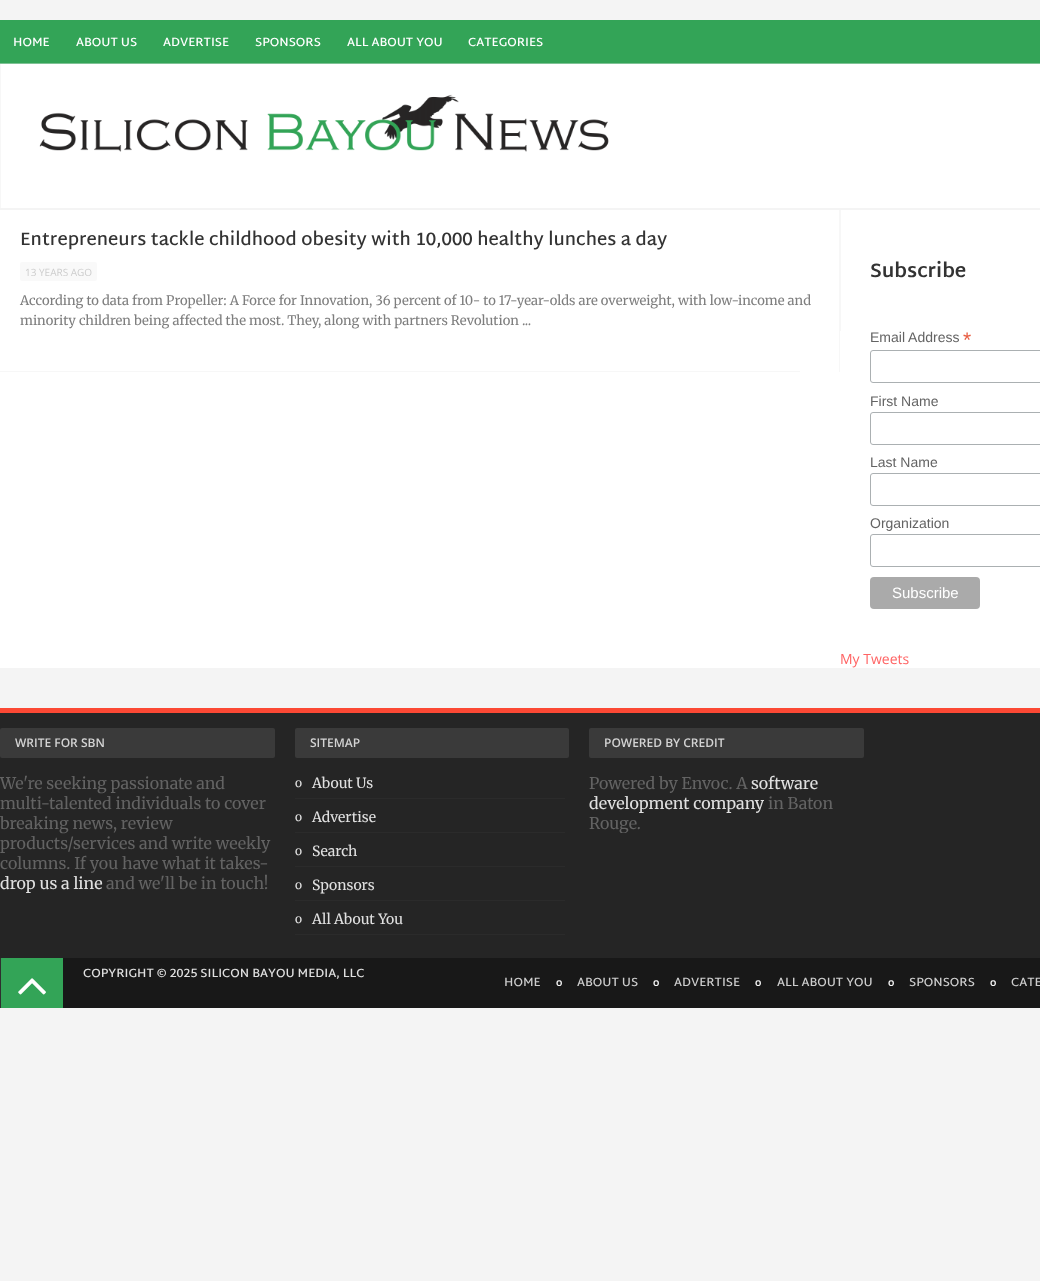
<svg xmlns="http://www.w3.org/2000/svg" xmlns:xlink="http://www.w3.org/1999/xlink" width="1040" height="1281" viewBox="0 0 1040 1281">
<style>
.cls-1{font:600 12px Martel Sans;fill:#ffffff}
.cls-2{font:600 18px Martel Sans;fill:#333333}
.cls-3{font:10px Open Sans;fill:#cdcdcd}
.cls-4{font:300 13px Merriweather;fill:#7e7e7e}
.cls-5{font:bold 19.5px Martel Sans;fill:#333333}
.cls-6{font:14px Liberation Sans;fill:#636363}
.cls-7{font:21px Liberation Sans;fill:#e85c41}
.cls-8{font:15px Liberation Sans;fill:#ffffff}
.cls-9{font:14px Open Sans;fill:#ff6464}
.cls-10{font:600 12px Open Sans;fill:#d3d3d3}
.cls-11{font:300 16px Merriweather;fill:#636363}
.cls-12{font:300 16px Merriweather;fill:#e0e0e0}
.cls-13{font:300 12px Merriweather;fill:#e0e0e0}
.cls-14{font:300 14px Merriweather;fill:#e0e0e0}
.cls-15{font:600 12px Martel Sans;fill:#e0e0e0}
.cls-16{font:600 12px Martel Sans;fill:#cdcdcd}
.cls-17{font:bold 8px Open Sans;fill:#f8f8f8}
</style>
<defs>
<clipPath id="clip1"><rect x="589" y="728" width="275" height="105"/></clipPath>
</defs>
<rect width="100%" height="100%" fill="#f4f4f4"/>
<rect fill="#33a457" x="0" y="20" width="1040" height="43"/>
<rect fill="#7fc295" x="0" y="63" width="1040" height="1"/>
<rect fill="#ffffff" x="1" y="64" width="1039" height="144"/>
<rect fill="#f7f7f7" x="0" y="64" width="1" height="144"/>
<image xlink:href="image0.png" x="39" y="94" width="570" height="58"/>
<rect fill="#ffffff" x="0" y="210" width="1040" height="458"/>
<rect fill="#f7f7f7" x="839" y="210" width="1" height="162"/>
<rect fill="#f7f7f7" x="840" y="210" width="1" height="121"/>
<rect fill="#f9f9f9" x="20" y="262" width="77" height="19" rx="2"/>
<rect fill="#f7f7f7" x="0" y="371" width="800" height="1"/>
<rect fill="none" stroke="#abb0b2" x="870.5" y="350.5" width="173" height="32" rx="2.5"/>
<rect fill="none" stroke="#abb0b2" x="870.5" y="412.5" width="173" height="32" rx="2.5"/>
<rect fill="none" stroke="#abb0b2" x="870.5" y="473.5" width="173" height="32" rx="2.5"/>
<rect fill="none" stroke="#abb0b2" x="870.5" y="534.5" width="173" height="32" rx="2.5"/>
<rect fill="#aaaaaa" x="870" y="577" width="110" height="32" rx="4"/>
<rect fill="#252525" x="0" y="713" width="1040" height="245"/>
<rect fill="#fb4834" x="0" y="708" width="1040" height="5"/>
<rect fill="#3a3a3a" x="0" y="728" width="275" height="30" rx="2"/>
<rect fill="#3a3a3a" x="295" y="728" width="274" height="30" rx="2"/>
<rect fill="#2b2b2b" x="295" y="798" width="270" height="1"/>
<rect fill="#2b2b2b" x="295" y="832" width="270" height="1"/>
<rect fill="#2b2b2b" x="295" y="866" width="270" height="1"/>
<rect fill="#2b2b2b" x="295" y="900" width="270" height="1"/>
<rect fill="#2b2b2b" x="295" y="934" width="270" height="1"/>
<rect fill="#3a3a3a" x="589" y="728" width="275" height="30" rx="2"/>
<rect fill="#181818" x="63" y="958" width="977" height="50"/>
<rect fill="#2f2f2f" x="0" y="958" width="1" height="50"/>
<rect fill="#33a457" x="1" y="958" width="62" height="50"/>
<image xlink:href="image1.png" x="18" y="978" width="28" height="17"/>
<text class="cls-1" x="13" y="46">HOME</text>
<text class="cls-1" x="76" y="46">ABOUT US</text>
<text class="cls-1" x="163" y="46">ADVERTISE</text>
<text class="cls-1" x="255" y="46">SPONSORS</text>
<text class="cls-1" x="347" y="46">ALL ABOUT YOU</text>
<text class="cls-1" x="468" y="46">CATEGORIES</text>
<text class="cls-2" x="20" y="245">Entrepreneurs tackle childhood obesity with 10,000 healthy lunches a day</text>
<text class="cls-3" x="25" y="276">13 YEARS AGO</text>
<text class="cls-4"><tspan x="20" y="305">According to data from Propeller: A Force for Innovation, 36 percent of 10- to 17-year-olds are overweight, with low-income and</tspan><tspan x="20" y="325">minority children being affected the most. They, along with partners Revolution ...</tspan></text>
<text class="cls-5" x="870" y="277">Subscribe</text>
<text class="cls-6" x="870" y="342">Email Address</text>
<text class="cls-7" x="963" y="347">*</text>
<text class="cls-6" x="870" y="406">First Name</text>
<text class="cls-6" x="870" y="467">Last Name</text>
<text class="cls-6" x="870" y="528">Organization</text>
<text class="cls-8" x="892" y="598">Subscribe</text>
<text class="cls-9" x="840" y="664">My Tweets</text>
<text class="cls-10" x="15" y="747">WRITE FOR SBN</text>
<text class="cls-11"><tspan x="0" y="789">We're seeking passionate and</tspan><tspan x="0" y="809">multi-talented individuals to cover</tspan><tspan x="0" y="829">breaking news, review</tspan><tspan x="0" y="849">products/services and write weekly</tspan><tspan x="0" y="869">columns. If you have what it takes-</tspan></text>
<text class="cls-12" x="0" y="889">drop us a line</text>
<text class="cls-11" x="106" y="889">and we'll be in touch!</text>
<text class="cls-10" x="310" y="747">SITEMAP</text>
<text class="cls-13" x="295" y="787">o</text>
<text class="cls-14" x="312" y="788">About Us</text>
<text class="cls-13" x="295" y="821">o</text>
<text class="cls-14" x="312" y="822">Advertise</text>
<text class="cls-13" x="295" y="855">o</text>
<text class="cls-14" x="312" y="856">Search</text>
<text class="cls-13" x="295" y="889">o</text>
<text class="cls-14" x="312" y="890">Sponsors</text>
<text class="cls-13" x="295" y="923">o</text>
<text class="cls-14" x="312" y="924">All About You</text>
<text class="cls-10" x="604" y="747">POWERED BY CREDIT</text>
<text class="cls-11" x="589" y="789">Powered by Envoc. A</text>
<text class="cls-12" x="751" y="789">software</text>
<text class="cls-12" x="589" y="809">development company</text>
<text class="cls-11" x="768" y="809">in Baton</text>
<g clip-path="url(#clip1)">
<text class="cls-11" x="589" y="829">Rouge.</text>
</g>
<text class="cls-15" x="83" y="977">COPYRIGHT © 2025 SILICON BAYOU MEDIA, LLC</text>
<text class="cls-16" x="504" y="986">HOME</text>
<text class="cls-17" x="556" y="986">O</text>
<text class="cls-16" x="577" y="986">ABOUT US</text>
<text class="cls-17" x="653" y="986">O</text>
<text class="cls-16" x="674" y="986">ADVERTISE</text>
<text class="cls-17" x="755" y="986">O</text>
<text class="cls-16" x="777" y="986">ALL ABOUT YOU</text>
<text class="cls-17" x="888" y="986">O</text>
<text class="cls-16" x="909" y="986">SPONSORS</text>
<text class="cls-17" x="990" y="986">O</text>
<text class="cls-16" x="1011" y="986">CATE</text>
</svg>
